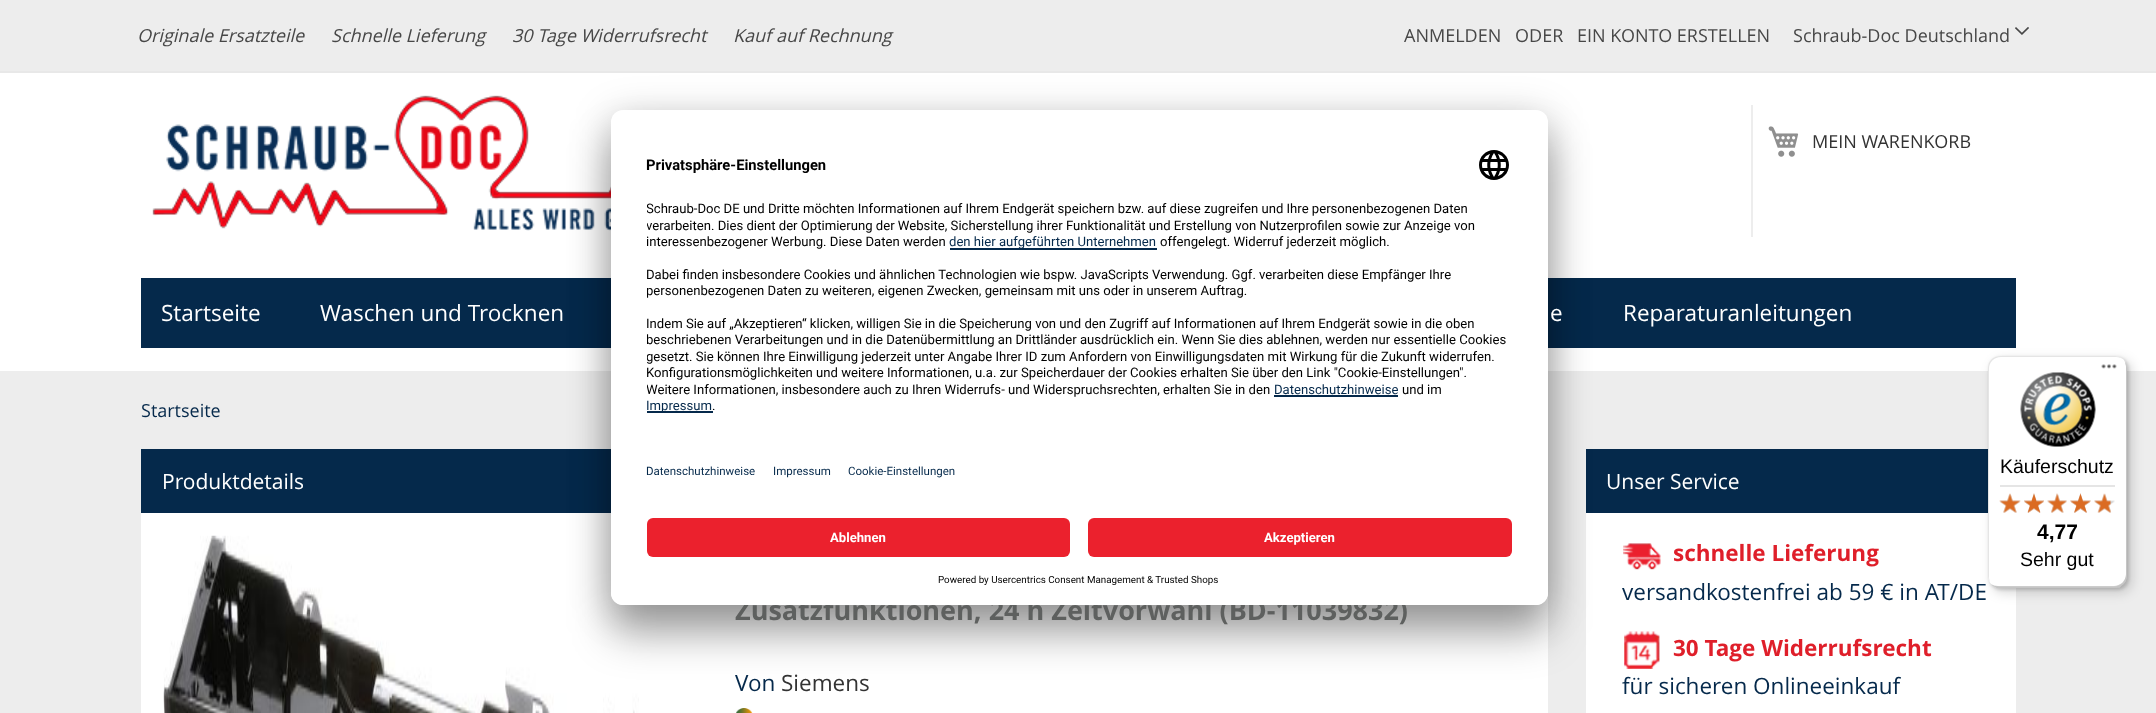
<svg xmlns="http://www.w3.org/2000/svg" xmlns:xlink="http://www.w3.org/1999/xlink" width="2156" height="713" viewBox="0 0 2156 713">
<style>
.cls-1{font:italic 18px Open Sans;fill:#474747}
.cls-2{font:18px Open Sans;fill:#474747}
.cls-3{font:18px Open Sans;fill:#333333}
.cls-4{font:22.5px Open Sans;fill:#ffffff}
.cls-5{font:18px Open Sans;fill:#05294b}
.cls-6{font:21px Open Sans;fill:#ffffff}
.cls-7{font:bold 27px Open Sans;fill:#5e605f}
.cls-8{font:22.5px Open Sans;fill:#05294b}
.cls-9{font:22.5px Open Sans;fill:#333333}
.cls-10{font:bold 22.5px Open Sans;fill:#df1f2a}
.cls-11{font:bold 14.75px Roboto;fill:#000000}
.cls-12{font:13.12px Roboto;fill:#000000}
.cls-13{font:13.12px Roboto;fill:#05294b}
.cls-14{font:11.5px Roboto;fill:#05294b}
.cls-15{font:bold 13.12px Roboto;fill:#ffffff}
.cls-16{font:9.8px Roboto;fill:#000000}
.cls-17{font:19.5px Liberation Sans;fill:#000000}
.cls-18{font:bold 21px Liberation Sans;fill:#000000}
</style>
<defs>
<clipPath id="clip1"><rect x="647" y="195" width="865" height="225"/></clipPath>
</defs>
<rect width="100%" height="100%" fill="#ededed"/>
<rect fill="#ffffff" x="0" y="73" width="2156" height="298"/>
<rect fill="#e8e8e8" x="0" y="71" width="2156" height="2"/>
<image xlink:href="image0.png" x="2015" y="27" width="14" height="8"/>
<image xlink:href="image1.png" x="152" y="95" width="459" height="136"/>
<rect fill="#ededed" x="1751" y="105" width="2" height="132"/>
<image xlink:href="image2.png" x="1768" y="126" width="31" height="31"/>
<rect fill="#05294b" x="141" y="278" width="1875" height="70"/>
<rect fill="#ffffff" x="141" y="513" width="1407" height="200"/>
<rect fill="#05294b" x="141" y="449" width="470" height="64"/>
<image xlink:href="image3.png" x="163" y="535" width="476" height="178"/>
<image xlink:href="image4.png" x="736" y="708" width="17" height="5"/>
<rect fill="#ffffff" x="1586" y="513" width="430" height="200"/>
<rect fill="#05294b" x="1586" y="449" width="402" height="64"/>
<image xlink:href="image5.png" x="1623" y="543" width="38" height="27"/>
<image xlink:href="image6.png" x="1624" y="631" width="36" height="38"/>
<rect fill="#000000" fill-opacity="0.3" filter="blur(21px)" x="611" y="140" width="937" height="495" rx="12"/>
<rect fill="#000000" fill-opacity="0.22" filter="blur(19.5px)" x="611" y="117" width="937" height="495" rx="12"/>
<rect fill="#000000" fill-opacity="0.15" filter="blur(6px)" x="1992" y="360" width="140" height="233" rx="12"/>
<rect fill="#000000" fill-opacity="0.15" filter="blur(1.5px)" x="1989" y="357" width="140" height="233" rx="12"/>
<rect fill="#ffffff" x="1988" y="356" width="139" height="232" rx="12"/>
<path fill="#e5e5e5" d="M2001 357H2116C2119 357 2121 358 2123 359C2121 357 2118 356 2115 356H2000C1993 356 1988 361 1988 368V576C1988 578 1989 581 1990 583L1989 578V369C1989 362 1994 357 2001 357Z"/>
<path fill="#000000" fill-opacity="0.2" d="M1991 584C1993 586 1996 588 2000 588H2115C2122 588 2127 583 2127 576V368C2127 366 2126 363 2125 362L2126 366V574C2126 581 2120 586 2114 586H1998C1995 586 1993 585 1991 584Z"/>
<path fill="#323232" fill-opacity="0.2" d="M1992 585C1994 587 1997 588 2000 588H2115C2122 588 2127 583 2127 576V368C2127 365 2126 362 2124 360C2125 362 2126 364 2126 367V575C2126 582 2121 587 2114 587H1999C1996 587 1994 586 1992 585Z"/>
<path fill="#ffffff" fill-opacity="0.3" d="M1992 585C1994 587 1997 588 2000 588H2115C2122 588 2127 583 2127 576V368C2127 365 2126 362 2124 360C2125 362 2126 364 2126 367V575C2126 582 2121 587 2114 587H1999C1996 587 1994 586 1992 585Z"/>
<image xlink:href="image8.png" x="2101" y="364" width="16" height="5"/>
<image xlink:href="image9.png" x="2020" y="372" width="76" height="75"/>
<rect fill="#e5e5e5" x="2000" y="485" width="115" height="2"/>
<image xlink:href="image15.png" x="2000" y="494" width="20" height="19"/>
<image xlink:href="image10.png" x="1999" y="493" width="22" height="20"/>
<image xlink:href="image16.png" x="2024" y="493" width="20" height="20"/>
<image xlink:href="image11.png" x="2024" y="493" width="20" height="20"/>
<image xlink:href="image17.png" x="2047" y="493" width="20" height="20"/>
<image xlink:href="image12.png" x="2047" y="493" width="20" height="20"/>
<image xlink:href="image18.png" x="2070" y="493" width="21" height="20"/>
<image xlink:href="image13.png" x="2070" y="493" width="21" height="20"/>
<image xlink:href="image19.png" x="2094" y="494" width="21" height="19"/>
<image xlink:href="image14.png" x="2094" y="493" width="17" height="20"/>
<text class="cls-1" x="137" y="42">Originale Ersatzteile</text>
<text class="cls-1" x="331" y="42">Schnelle Lieferung</text>
<text class="cls-1" x="512" y="42">30 Tage Widerrufsrecht</text>
<text class="cls-1" x="733" y="42">Kauf auf Rechnung</text>
<text class="cls-2" x="1404" y="42">ANMELDEN</text>
<text class="cls-2" x="1515" y="42">ODER</text>
<text class="cls-2" x="1577" y="42">EIN KONTO ERSTELLEN</text>
<text class="cls-2" x="1793" y="42">Schraub-Doc Deutschland</text>
<text class="cls-3" x="1812" y="148">MEIN WARENKORB</text>
<text class="cls-4" x="161" y="321">Startseite</text>
<text class="cls-4" x="320" y="321">Waschen und Trocknen</text>
<text class="cls-4" x="1550" y="321">e</text>
<text class="cls-4" x="1623" y="321">Reparaturanleitungen</text>
<text class="cls-5" x="141" y="417">Startseite</text>
<text class="cls-6" x="162" y="489">Produktdetails</text>
<text class="cls-7" x="735" y="620">Zusatzfunktionen, 24 h Zeitvorwahl (BD-11039832)</text>
<text class="cls-8" x="735" y="691">Von</text>
<text class="cls-9" x="781" y="691">Siemens</text>
<text class="cls-6" x="1606" y="489">Unser Service</text>
<text class="cls-10" x="1673" y="561">schnelle Lieferung</text>
<text class="cls-8" x="1622" y="600">versandkostenfrei ab 59 € in AT/DE</text>
<text class="cls-10" x="1673" y="656">30 Tage Widerrufsrecht</text>
<text class="cls-8" x="1622" y="694">für sicheren Onlineeinkauf</text>
<rect fill="#ffffff" x="611" y="110" width="937" height="495" rx="12"/>
<text class="cls-11" x="646" y="170">Privatsphäre-Einstellungen</text>
<image xlink:href="image7.png" x="1479" y="150" width="30" height="30"/>
<g clip-path="url(#clip1)">
<text class="cls-12"><tspan x="646" y="213">Schraub-Doc DE und Dritte möchten Informationen auf Ihrem Endgerät speichern bzw. auf diese zugreifen und Ihre personenbezogenen Daten</tspan><tspan x="646" y="230">verarbeiten. Dies dient der Optimierung der Website, Sicherstellung ihrer Funktionalität und Erstellung von Nutzerprofilen sowie zur Anzeige von</tspan><tspan x="646" y="246">interessenbezogener Werbung. Diese Daten werden</tspan></text>
</g>
<rect fill="#05294b" x="950" y="248" width="207" height="2"/>
<text class="cls-13" x="949" y="246">den hier aufgeführten Unternehmen</text>
<text class="cls-12" x="1160" y="246">offengelegt. Widerruf jederzeit möglich.</text>
<g clip-path="url(#clip1)">
<text class="cls-12"><tspan x="646" y="279">Dabei finden insbesondere Cookies und ähnlichen Technologien wie bspw. JavaScripts Verwendung. Ggf. verarbeiten diese Empfänger Ihre</tspan><tspan x="646" y="295">personenbezogenen Daten zu weiteren, eigenen Zwecken, gemeinsam mit uns oder in unserem Auftrag.</tspan></text>
<text class="cls-12"><tspan x="646" y="328">Indem Sie auf „Akzeptieren“ klicken, willigen Sie in die Speicherung von und den Zugriff auf Informationen auf Ihrem Endgerät sowie in die oben</tspan><tspan x="646" y="344">beschriebenen Verarbeitungen und in die Datenübermittlung an Drittländer ausdrücklich ein. Wenn Sie dies ablehnen, werden nur essentielle Cookies</tspan><tspan x="646" y="361">gesetzt. Sie können Ihre Einwilligung jederzeit unter Angabe Ihrer ID zum Anfordern von Einwilligungsdaten mit Wirkung für die Zukunft widerrufen.</tspan><tspan x="646" y="377">Konfigurationsmöglichkeiten und weitere Informationen, u.a. zur Speicherdauer der Cookies erhalten Sie über den Link "Cookie-Einstellungen".</tspan><tspan x="646" y="394">Weitere Informationen, insbesondere auch zu Ihren Widerrufs- und Widerspruchsrechten, erhalten Sie in den</tspan></text>
</g>
<text class="cls-13" x="1274" y="394">Datenschutzhinweise</text>
<rect fill="#05294b" x="1274" y="395" width="124" height="2"/>
<text class="cls-12" x="1402" y="394">und im</text>
<text class="cls-12" x="712" y="410">.</text>
<rect fill="#05294b" x="647" y="411" width="66" height="2"/>
<g clip-path="url(#clip1)">
<text class="cls-13" x="646" y="410">Impressum</text>
</g>
<text class="cls-14" x="646" y="475">Datenschutzhinweise</text>
<text class="cls-14" x="773" y="475">Impressum</text>
<text class="cls-14" x="848" y="475">Cookie-Einstellungen</text>
<path fill="#ffffff" d="M611 506H1548V593C1548 599.5 1542.5 605 1536 605H623C616.5 605 611 599.5 611 593Z"/>
<rect fill="#eb212d" x="647" y="518" width="423" height="39" rx="6"/>
<text class="cls-15" x="830" y="542">Ablehnen</text>
<rect fill="#eb212d" x="1088" y="518" width="424" height="39" rx="6"/>
<text class="cls-15" x="1264" y="542">Akzeptieren</text>
<text class="cls-16" x="938" y="583">Powered by Usercentrics Consent Management</text>
<text class="cls-16" x="1147" y="583">&amp; Trusted Shops</text>
<text class="cls-17" x="2000" y="473">Käuferschutz</text>
<text class="cls-18" x="2037" y="539">4,77</text>
<text class="cls-17" x="2020" y="566">Sehr gut</text>
</svg>
